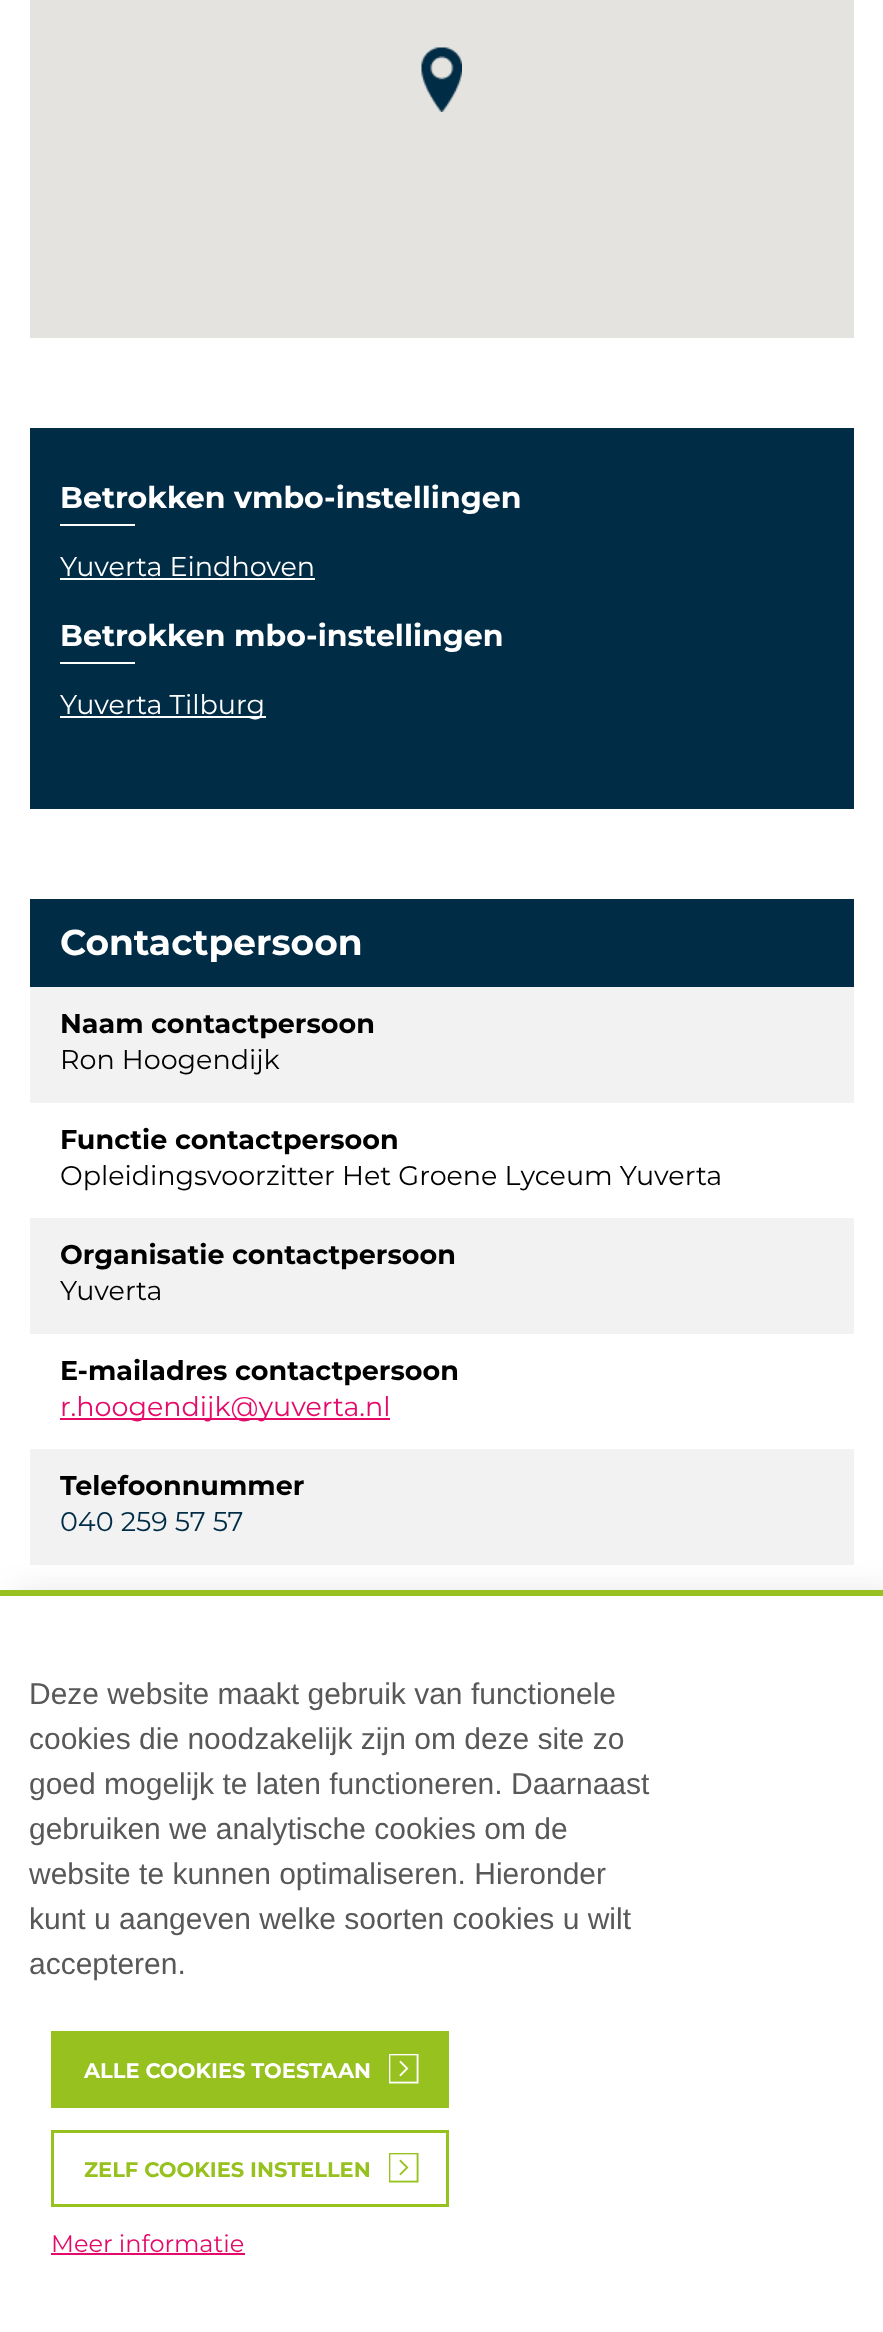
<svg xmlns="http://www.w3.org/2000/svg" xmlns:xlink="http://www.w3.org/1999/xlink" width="883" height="2332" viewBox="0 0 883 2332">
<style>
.cls-1{font:bold 30px Montserrat;fill:#ffffff}
.cls-2{font:27px Montserrat;fill:#ffffff}
.cls-3{font:bold 36px Montserrat;fill:#ffffff}
.cls-4{font:bold 27px Montserrat;fill:#000000}
.cls-5{font:27px Montserrat;fill:#000000}
.cls-6{font:27px Montserrat;fill:#e40a69}
.cls-7{font:27px Montserrat;fill:#002c46}
.cls-8{font:30px Liberation Sans;fill:#58585a}
.cls-9{font:bold 21px Montserrat;fill:#ffffff}
.cls-10{font:bold 21px Montserrat;fill:#96c11f}
.cls-11{font:24px Montserrat;fill:#e40a69}
</style>
<rect width="100%" height="100%" fill="#ffffff"/>
<rect fill="#e5e3df" x="30" y="0" width="824" height="338"/>
<image xlink:href="image0.png" x="421" y="47" width="41" height="65"/>
<rect fill="#002c46" x="30" y="428" width="824" height="381"/>
<rect fill="#ffffff" x="60" y="524" width="75" height="2"/>
<rect fill="#ffffff" x="60" y="578" width="255" height="2"/>
<rect fill="#ffffff" x="60" y="662" width="75" height="2"/>
<rect fill="#ffffff" x="60" y="716" width="206" height="2"/>
<rect fill="#002c46" x="30" y="899" width="824" height="88"/>
<rect fill="#f2f2f2" x="30" y="987" width="824" height="116"/>
<rect fill="#f2f2f2" x="30" y="1218" width="824" height="116"/>
<rect fill="#e40a69" x="60" y="1418" width="330" height="2"/>
<rect fill="#f2f2f2" x="30" y="1449" width="824" height="116"/>
<rect fill="#1a171b" fill-opacity="0.1" filter="blur(15px)" x="15" y="1590" width="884" height="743"/>
<rect fill="#ffffff" x="0" y="1596" width="883" height="736"/>
<rect fill="#96c11f" x="0" y="1590" width="883" height="6"/>
<rect fill="#96c11f" x="51" y="2031" width="398" height="77"/>
<image xlink:href="image1.png" x="389" y="2054" width="30" height="30"/>
<rect fill="none" stroke="#96c11f" stroke-width="3" x="52.5" y="2131.5" width="395" height="74"/>
<image xlink:href="image2.png" x="389" y="2153" width="30" height="30"/>
<rect fill="#e40a69" x="51" y="2253" width="194" height="2"/>
<text class="cls-1" x="60" y="508">Betrokken vmbo-instellingen</text>
<text class="cls-2" x="60" y="576">Yuverta Eindhoven</text>
<text class="cls-1" x="60" y="646">Betrokken mbo-instellingen</text>
<text class="cls-2" x="60" y="714">Yuverta Tilburg</text>
<text class="cls-3" x="60" y="955">Contactpersoon</text>
<text class="cls-4" x="60" y="1033">Naam contactpersoon</text>
<text class="cls-5" x="60" y="1069">Ron Hoogendijk</text>
<text class="cls-4" x="60" y="1149">Functie contactpersoon</text>
<text class="cls-5" x="60" y="1185">Opleidingsvoorzitter Het Groene Lyceum Yuverta</text>
<text class="cls-4" x="60" y="1264">Organisatie contactpersoon</text>
<text class="cls-5" x="60" y="1300">Yuverta</text>
<text class="cls-4" x="60" y="1380">E-mailadres contactpersoon</text>
<text class="cls-6" x="60" y="1416">r.hoogendijk@yuverta.nl</text>
<text class="cls-4" x="60" y="1495">Telefoonnummer</text>
<text class="cls-7" x="60" y="1531">040 259 57 57</text>
<text class="cls-8"><tspan x="29" y="1704">Deze website maakt gebruik van functionele</tspan><tspan x="29" y="1749">cookies die noodzakelijk zijn om deze site zo</tspan><tspan x="29" y="1794">goed mogelijk te laten functioneren. Daarnaast</tspan><tspan x="29" y="1839">gebruiken we analytische cookies om de</tspan><tspan x="29" y="1884">website te kunnen optimaliseren. Hieronder</tspan><tspan x="29" y="1929">kunt u aangeven welke soorten cookies u wilt</tspan><tspan x="29" y="1974">accepteren.</tspan></text>
<text class="cls-9" x="84" y="2078">ALLE COOKIES TOESTAAN</text>
<text class="cls-10" x="84" y="2177">ZELF COOKIES INSTELLEN</text>
<text class="cls-11" x="51" y="2252">Meer informatie</text>
</svg>
